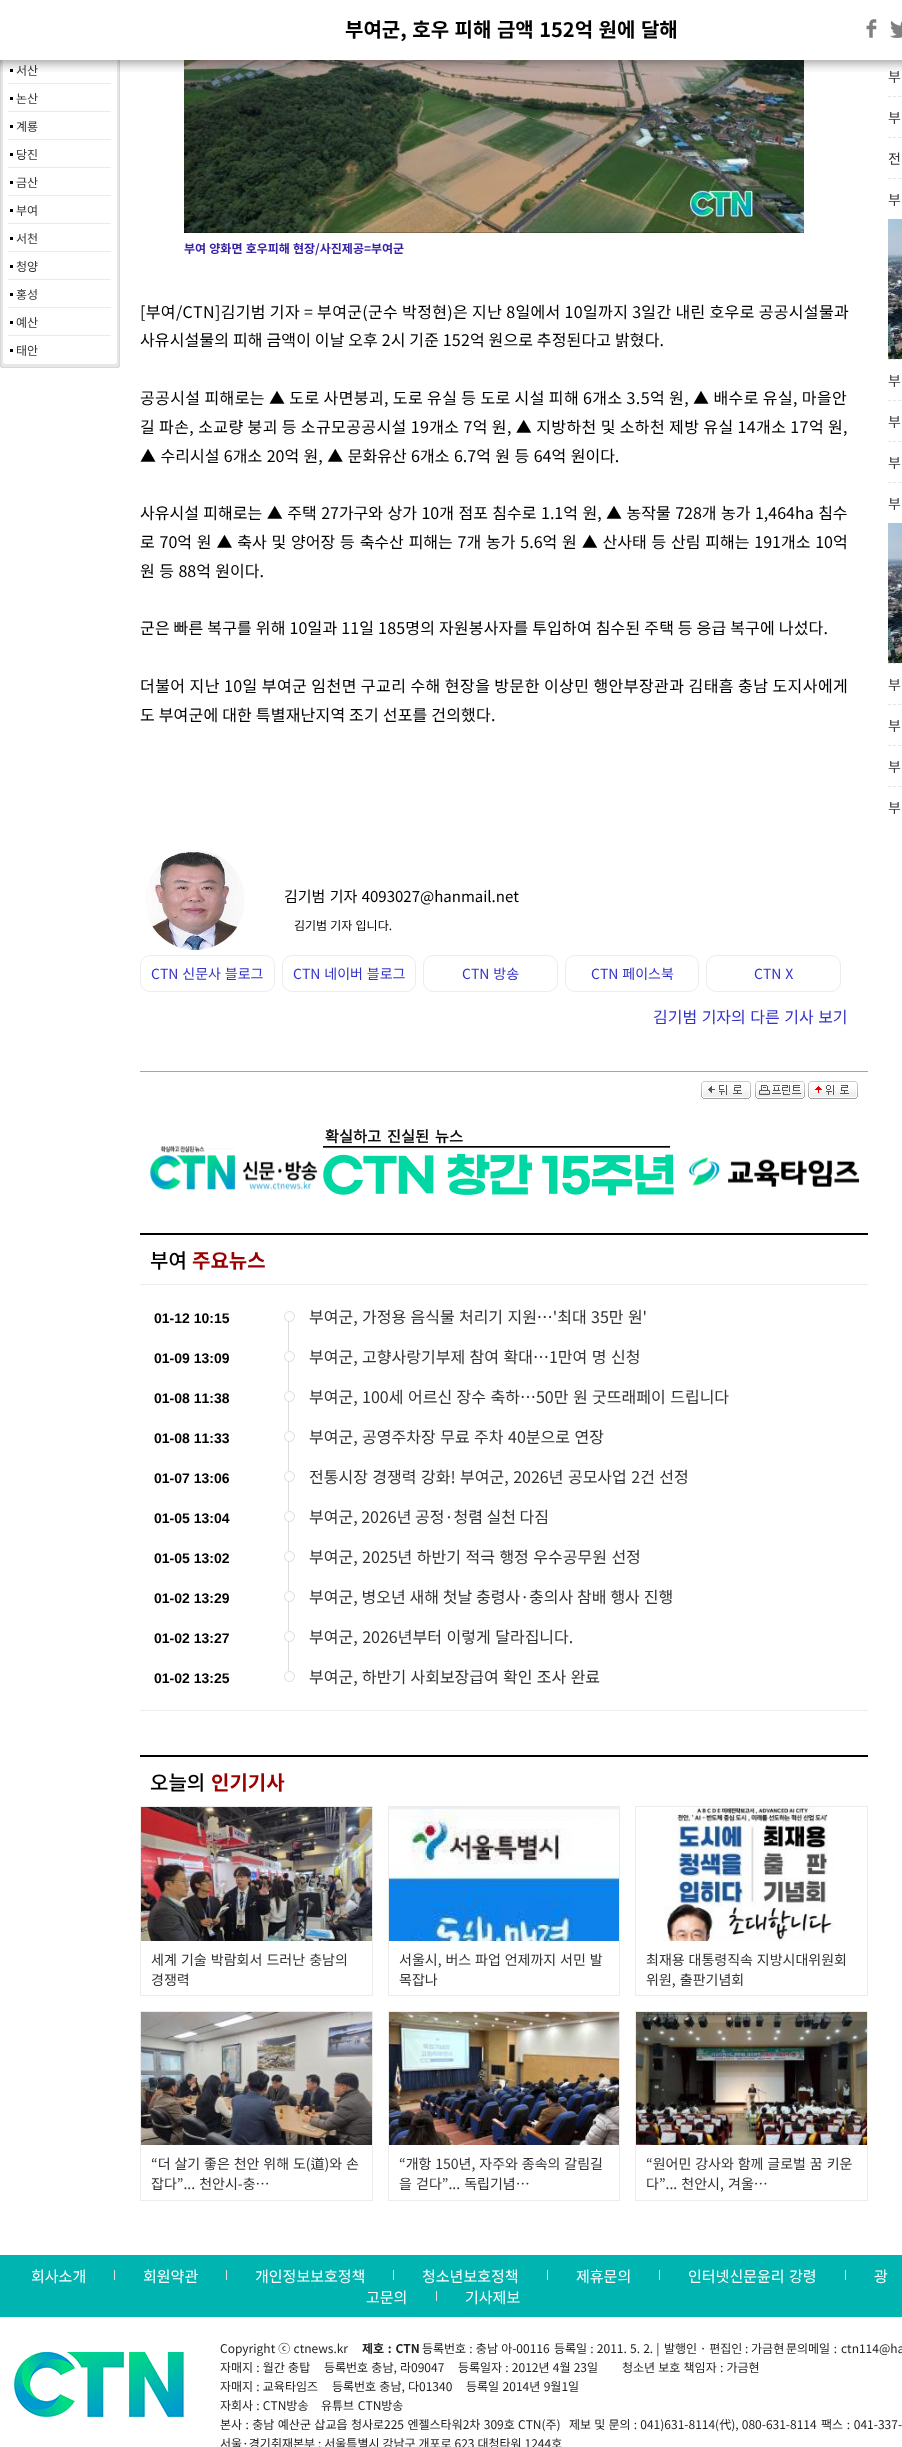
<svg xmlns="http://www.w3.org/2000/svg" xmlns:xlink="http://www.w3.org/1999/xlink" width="902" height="2447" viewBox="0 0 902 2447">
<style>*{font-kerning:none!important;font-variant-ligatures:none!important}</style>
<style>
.cls-1{font:12px Noto Sans KR;fill:#333333}
.cls-2{font:bold 12px Noto Sans KR;fill:#3522a4}
.cls-3{font:16px Noto Sans KR;letter-spacing:0.35px;fill:#000000}
.cls-4{font:16px Noto Sans KR;letter-spacing:0.15px;fill:#000000}
.cls-5{font:16px Noto Sans KR;letter-spacing:0.4px;fill:#000000}
.cls-6{font:16px Noto Sans KR;fill:#000000}
.cls-7{font:16px Noto Sans KR;letter-spacing:0.2px;fill:#000000}
.cls-8{font:16px Noto Sans KR;letter-spacing:0.45px;fill:#000000}
.cls-9{font:15px Noto Sans KR;fill:#000000}
.cls-10{font:12px Noto Sans KR;fill:#000000}
.cls-11{font:14px Noto Sans KR;fill:#3333cc}
.cls-12{font:16px Noto Sans KR;fill:#3333cc}
.cls-13{font:500 20px Noto Sans KR;fill:#000000}
.cls-14{font:bold 20px Noto Sans KR;fill:#990000}
.cls-15{font:bold 14px Liberation Sans;fill:#000000}
.cls-16{font:16px Noto Sans KR;fill:#333333}
.cls-17{font:14px Noto Sans KR;fill:#333333}
.cls-18{font:bold 20px Noto Sans KR;fill:#000000}
.cls-19{font:15px Noto Sans KR;fill:#ffffff}
.cls-20{font:12px Noto Sans KR;fill:#222222}
.cls-21{font:bold 12px Noto Sans KR;fill:#222222}
</style>
<rect width="100%" height="100%" fill="#ffffff"/>
<image xlink:href="image3.png" x="0" y="60" width="120" height="303"/>
<rect fill="#000000" x="10" y="69" width="3" height="3"/>
<rect fill="#eaeaea" x="8" y="83" width="103" height="1"/>
<rect fill="#000000" x="10" y="97" width="3" height="3"/>
<rect fill="#eaeaea" x="8" y="111" width="103" height="1"/>
<rect fill="#000000" x="10" y="125" width="3" height="3"/>
<rect fill="#eaeaea" x="8" y="139" width="103" height="1"/>
<rect fill="#000000" x="10" y="153" width="3" height="3"/>
<rect fill="#eaeaea" x="8" y="167" width="103" height="1"/>
<rect fill="#000000" x="10" y="181" width="3" height="3"/>
<rect fill="#eaeaea" x="8" y="195" width="103" height="1"/>
<rect fill="#000000" x="10" y="209" width="3" height="3"/>
<rect fill="#eaeaea" x="8" y="223" width="103" height="1"/>
<rect fill="#000000" x="10" y="237" width="3" height="3"/>
<rect fill="#eaeaea" x="8" y="251" width="103" height="1"/>
<rect fill="#000000" x="10" y="265" width="3" height="3"/>
<rect fill="#eaeaea" x="8" y="279" width="103" height="1"/>
<rect fill="#000000" x="10" y="293" width="3" height="3"/>
<rect fill="#eaeaea" x="8" y="307" width="103" height="1"/>
<rect fill="#000000" x="10" y="321" width="3" height="3"/>
<rect fill="#eaeaea" x="8" y="335" width="103" height="1"/>
<rect fill="#000000" x="10" y="349" width="3" height="3"/>
<image xlink:href="image4.png" x="0" y="363" width="120" height="5"/>
<image xlink:href="image5.png" x="184" y="60" width="620" height="173"/>
<image xlink:href="image6.png" x="145" y="850" width="100" height="100"/>
<rect fill="none" stroke="#ececec" x="140.5" y="955.5" width="134" height="36" rx="9.5"/>
<rect fill="none" stroke="#ececec" x="282.5" y="955.5" width="133" height="36" rx="9.5"/>
<rect fill="none" stroke="#ececec" x="423.5" y="955.5" width="134" height="36" rx="9.5"/>
<rect fill="none" stroke="#ececec" x="565.5" y="955.5" width="133" height="36" rx="9.5"/>
<rect fill="none" stroke="#ececec" x="706.5" y="955.5" width="134" height="36" rx="9.5"/>
<rect fill="#a5a5a5" x="140" y="1071" width="728" height="1"/>
<image xlink:href="image7.png" x="701" y="1081" width="50" height="18"/>
<image xlink:href="image8.png" x="755" y="1081" width="50" height="18"/>
<image xlink:href="image9.png" x="808" y="1081" width="50" height="18"/>
<image xlink:href="image10.png" x="150" y="1129" width="710" height="67"/>
<rect fill="#000000" x="140" y="1233" width="728" height="2"/>
<rect fill="#eeeeee" x="140" y="1284" width="728" height="1"/>
<rect fill="#dddddd" x="288" y="1315" width="1" height="365"/>
<circle fill="#ffffff" stroke="#dddddd" cx="289.5" cy="1316.5" r="5"/>
<circle fill="#ffffff" stroke="#dddddd" cx="289.5" cy="1356.5" r="5"/>
<circle fill="#ffffff" stroke="#dddddd" cx="289.5" cy="1396.5" r="5"/>
<circle fill="#ffffff" stroke="#dddddd" cx="289.5" cy="1436.5" r="5"/>
<circle fill="#ffffff" stroke="#dddddd" cx="289.5" cy="1476.5" r="5"/>
<circle fill="#ffffff" stroke="#dddddd" cx="289.5" cy="1516.5" r="5"/>
<circle fill="#ffffff" stroke="#dddddd" cx="289.5" cy="1556.5" r="5"/>
<circle fill="#ffffff" stroke="#dddddd" cx="289.5" cy="1596.5" r="5"/>
<circle fill="#ffffff" stroke="#dddddd" cx="289.5" cy="1636.5" r="5"/>
<circle fill="#ffffff" stroke="#dddddd" cx="289.5" cy="1676.5" r="5"/>
<rect fill="#eeeeee" x="140" y="1710" width="728" height="1"/>
<rect fill="#000000" x="140" y="1755" width="728" height="2"/>
<rect fill="none" stroke="#ececec" x="140.5" y="1806.5" width="232" height="189"/>
<image xlink:href="image11.png" x="141" y="1807" width="231" height="134"/>
<rect fill="none" stroke="#ececec" x="388.5" y="1806.5" width="231" height="189"/>
<image xlink:href="image12.png" x="389" y="1807" width="230" height="134"/>
<rect fill="none" stroke="#ececec" x="635.5" y="1806.5" width="232" height="189"/>
<image xlink:href="image13.png" x="664" y="1807" width="171" height="134"/>
<rect fill="none" stroke="#ececec" x="140.5" y="2011.5" width="232" height="189"/>
<image xlink:href="image14.png" x="141" y="2012" width="231" height="133"/>
<rect fill="none" stroke="#ececec" x="388.5" y="2011.5" width="231" height="189"/>
<image xlink:href="image15.png" x="389" y="2012" width="230" height="133"/>
<rect fill="none" stroke="#ececec" x="635.5" y="2011.5" width="232" height="189"/>
<image xlink:href="image16.png" x="636" y="2012" width="231" height="133"/>
<path fill="none" stroke="#e5e5e5" stroke-dasharray="3 2.04" d="M888 96.5H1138"/>
<path fill="none" stroke="#e5e5e5" stroke-dasharray="3 2.04" d="M888 137.5H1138"/>
<path fill="none" stroke="#e5e5e5" stroke-dasharray="3 2.04" d="M888 178.5H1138"/>
<image xlink:href="image17.png" x="888" y="219" width="14" height="140"/>
<path fill="none" stroke="#e5e5e5" stroke-dasharray="3 2.04" d="M888 359.5H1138"/>
<path fill="none" stroke="#e5e5e5" stroke-dasharray="3 2.04" d="M888 400.5H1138"/>
<path fill="none" stroke="#e5e5e5" stroke-dasharray="3 2.04" d="M888 441.5H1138"/>
<path fill="none" stroke="#e5e5e5" stroke-dasharray="3 2.04" d="M888 482.5H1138"/>
<image xlink:href="image18.png" x="888" y="523" width="14" height="140"/>
<path fill="none" stroke="#e5e5e5" stroke-dasharray="3 2.04" d="M888 663.5H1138"/>
<path fill="none" stroke="#e5e5e5" stroke-dasharray="3 2.04" d="M888 704.5H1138"/>
<path fill="none" stroke="#e5e5e5" stroke-dasharray="3 2.04" d="M888 745.5H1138"/>
<path fill="none" stroke="#e5e5e5" stroke-dasharray="3 2.04" d="M888 786.5H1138"/>
<rect fill="#00b4b1" x="0" y="2255" width="902" height="62"/>
<rect fill="#e2e2e2" x="114" y="2270" width="1" height="10"/>
<rect fill="#e2e2e2" x="226" y="2270" width="1" height="10"/>
<rect fill="#e2e2e2" x="393" y="2270" width="1" height="10"/>
<rect fill="#e2e2e2" x="547" y="2270" width="1" height="10"/>
<rect fill="#e2e2e2" x="659" y="2270" width="1" height="10"/>
<rect fill="#e2e2e2" x="845" y="2270" width="1" height="10"/>
<rect fill="#e2e2e2" x="436" y="2291" width="1" height="10"/>
<image xlink:href="image19.png" x="14" y="2352" width="170" height="65"/>
<text class="cls-1" x="16" y="75">서산</text>
<text class="cls-1" x="16" y="103">논산</text>
<text class="cls-1" x="16" y="131">계룡</text>
<text class="cls-1" x="16" y="159">당진</text>
<text class="cls-1" x="16" y="187">금산</text>
<text class="cls-1" x="16" y="215">부여</text>
<text class="cls-1" x="16" y="243">서천</text>
<text class="cls-1" x="16" y="271">청양</text>
<text class="cls-1" x="16" y="299">홍성</text>
<text class="cls-1" x="16" y="327">예산</text>
<text class="cls-1" x="16" y="355">태안</text>
<text class="cls-2" x="184" y="253" word-spacing="0.5">부여 양화면 호우피해 현장/사진제공=부여군</text>
<text class="cls-3" x="140" y="318">[부여/CTN]김기범 기자 = 부여군(군수 박정현)은 지난 8일에서 10일까지 3일간 내린 호우로 공공시설물과</text>
<text class="cls-4" x="140" y="346">사유시설물의 피해 금액이 이날 오후 2시 기준 152억 원으로 추정된다고 밝혔다.</text>
<text class="cls-5"><tspan x="140" y="404">공공시설 피해로는 ▲ 도로 사면붕괴, 도로 유실 등 도로 시설 피해 6개소 3.5억 원, ▲ 배수로 유실, 마을안</tspan><tspan x="140" y="433">길 파손, 소교량 붕괴 등 소규모공공시설 19개소 7억 원, ▲ 지방하천 및 소하천 제방 유실 14개소 17억 원,</tspan></text>
<text class="cls-6" x="140" y="462" word-spacing="0.9">▲ 수리시설 6개소 20억 원, ▲ 문화유산 6개소 6.7억 원 등 64억 원이다.</text>
<text class="cls-6"><tspan x="140" y="519" word-spacing="0.9">사유시설 피해로는 ▲ 주택 27가구와 상가 10개 점포 침수로 1.1억 원, ▲ 농작물 728개 농가 1,464ha 침수</tspan><tspan x="140" y="548" word-spacing="1.25">로 70억 원 ▲ 축사 및 양어장 등 축수산 피해는 7개 농가 5.6억 원 ▲ 산사태 등 산림 피해는 191개소 10억</tspan><tspan x="140" y="577" word-spacing="0.9">원 등 88억 원이다.</tspan></text>
<text class="cls-7" x="140" y="634">군은 빠른 복구를 위해 10일과 11일 185명의 자원봉사자를 투입하여 침수된 주택 등 응급 복구에 나섰다.</text>
<text class="cls-8" x="140" y="692">더불어 지난 10일 부여군 임천면 구교리 수해 현장을 방문한 이상민 행안부장관과 김태흠 충남 도지사에게</text>
<text class="cls-7" x="140" y="721">도 부여군에 대한 특별재난지역 조기 선포를 건의했다.</text>
<text class="cls-9" x="284" y="902" word-spacing="1">김기범 기자 4093027@hanmail.net</text>
<text class="cls-10" x="294" y="930" word-spacing="0.5">김기범 기자 입니다.</text>
<text class="cls-11" x="151" y="979" word-spacing="0.75">CTN 신문사 블로그</text>
<text class="cls-11" x="293" y="979" word-spacing="0.75">CTN 네이버 블로그</text>
<text class="cls-11" x="462" y="979" word-spacing="0.75">CTN 방송</text>
<text class="cls-11" x="591" y="979" word-spacing="0.75">CTN 페이스북</text>
<text class="cls-11" x="754" y="979" word-spacing="0.75">CTN X</text>
<text class="cls-12" x="653" y="1023" word-spacing="0.9">김기범 기자의 다른 기사 보기</text>
<text class="cls-13" x="150" y="1268">부여</text>
<text class="cls-14" x="192" y="1268">주요뉴스</text>
<text class="cls-15" x="154" y="1323">01-12 10:15</text>
<text class="cls-16" x="309" y="1323" word-spacing="0.75">부여군, 가정용 음식물 처리기 지원…'최대 35만 원'</text>
<text class="cls-15" x="154" y="1363">01-09 13:09</text>
<text class="cls-16" x="309" y="1363" word-spacing="0.9">부여군, 고향사랑기부제 참여 확대…1만여 명 신청</text>
<text class="cls-15" x="154" y="1403">01-08 11:38</text>
<text class="cls-16" x="309" y="1403" word-spacing="0.9">부여군, 100세 어르신 장수 축하…50만 원 굿뜨래페이 드립니다</text>
<text class="cls-15" x="154" y="1443">01-08 11:33</text>
<text class="cls-16" x="309" y="1443" word-spacing="0.9">부여군, 공영주차장 무료 주차 40분으로 연장</text>
<text class="cls-15" x="154" y="1483">01-07 13:06</text>
<text class="cls-16" x="309" y="1483" word-spacing="0.9">전통시장 경쟁력 강화! 부여군, 2026년 공모사업 2건 선정</text>
<text class="cls-15" x="154" y="1523">01-05 13:04</text>
<text class="cls-16" x="309" y="1523">부여군, 2026년 공정·청렴 실천 다짐</text>
<text class="cls-15" x="154" y="1563">01-05 13:02</text>
<text class="cls-16" x="309" y="1563" word-spacing="0.9">부여군, 2025년 하반기 적극 행정 우수공무원 선정</text>
<text class="cls-15" x="154" y="1603">01-02 13:29</text>
<text class="cls-16" x="309" y="1603" word-spacing="0.25">부여군, 병오년 새해 첫날 충령사·충의사 참배 행사 진행</text>
<text class="cls-15" x="154" y="1643">01-02 13:27</text>
<text class="cls-16" x="309" y="1643" word-spacing="1">부여군, 2026년부터 이렇게 달라집니다.</text>
<text class="cls-15" x="154" y="1683">01-02 13:25</text>
<text class="cls-16" x="309" y="1683" word-spacing="0.75">부여군, 하반기 사회보장급여 확인 조사 완료</text>
<text class="cls-13" x="150" y="1790">오늘의</text>
<text class="cls-14" x="211" y="1790">인기기사</text>
<text class="cls-17"><tspan x="151" y="1965" word-spacing="1">세계 기술 박람회서 드러난 충남의</tspan><tspan x="151" y="1985">경쟁력</tspan></text>
<text class="cls-17"><tspan x="399" y="1965" word-spacing="0.75">서울시, 버스 파업 언제까지 서민 발</tspan><tspan x="399" y="1985">목잡나</tspan></text>
<text class="cls-17"><tspan x="646" y="1965" word-spacing="0.75">최재용 대통령직속 지방시대위원회</tspan><tspan x="646" y="1985" word-spacing="1">위원, 출판기념회</tspan></text>
<text class="cls-17"><tspan x="151" y="2169" word-spacing="0.75">“더 살기 좋은 천안 위해 도(道)와 손</tspan><tspan x="151" y="2189" word-spacing="1">잡다”... 천안시-충…</tspan></text>
<text class="cls-17"><tspan x="399" y="2169" word-spacing="0.75">“개항 150년, 자주와 종속의 갈림길</tspan><tspan x="399" y="2189" word-spacing="1">을 걷다”... 독립기념…</tspan></text>
<text class="cls-17"><tspan x="646" y="2169" word-spacing="0.75">“원어민 강사와 함께 글로벌 꿈 키운</tspan><tspan x="646" y="2189" word-spacing="1">다”... 천안시, 겨울…</tspan></text>
<text class="cls-17" x="888" y="82" word-spacing="1">부</text>
<image xlink:href="image0.png" x="0" y="0" width="902" height="72"/>
<image xlink:href="image2.png" x="890" y="20" width="12" height="18"/>
<image xlink:href="image1.png" x="866" y="19" width="11" height="19"/>
<text class="cls-18" x="345" y="37" word-spacing="1">부여군, 호우 피해 금액 152억 원에 달해</text>
<text class="cls-17" x="888" y="123" word-spacing="0.75">부</text>
<text class="cls-17" x="888" y="164" word-spacing="0.75">전</text>
<text class="cls-17" x="888" y="205">부</text>
<text class="cls-17" x="888" y="386" word-spacing="0.75">부</text>
<text class="cls-17" x="888" y="427" word-spacing="0.75">부</text>
<text class="cls-17" x="888" y="468">부</text>
<text class="cls-17" x="888" y="509" word-spacing="1">부</text>
<text class="cls-17" x="888" y="690" word-spacing="0.75">부</text>
<text class="cls-17" x="888" y="731" word-spacing="1">부</text>
<text class="cls-17" x="888" y="772" word-spacing="0.75">부</text>
<text class="cls-17" x="888" y="813" word-spacing="0.75">부</text>
<text class="cls-19" x="31" y="2282">회사소개</text>
<text class="cls-19" x="143" y="2282">회원약관</text>
<text class="cls-19" x="255" y="2282">개인정보보호정책</text>
<text class="cls-19" x="422" y="2282">청소년보호정책</text>
<text class="cls-19" x="576" y="2282">제휴문의</text>
<text class="cls-19" x="688" y="2282" word-spacing="1">인터넷신문윤리 강령</text>
<text class="cls-19" x="874" y="2282">광</text>
<text class="cls-19" x="366" y="2303">고문의</text>
<text class="cls-19" x="465" y="2303">기사제보</text>
<text class="cls-20" x="220" y="2353" word-spacing="0.5">Copyright ⓒ ctnews.kr</text>
<text class="cls-21" x="362" y="2353" word-spacing="1">제호 : CTN</text>
<text class="cls-20" x="422" y="2353" word-spacing="0.5">등록번호 : 충남 아-00116</text>
<text class="cls-20" x="554" y="2353" word-spacing="0.5">등록일 : 2011. 5. 2. |</text>
<text class="cls-20" x="664" y="2353">발행인 · 편집인 : 가금현</text>
<text class="cls-20" x="786" y="2353" word-spacing="1">문의메일 :</text>
<text class="cls-20" x="841" y="2353">ctn114@ha</text>
<text class="cls-20" x="220" y="2372" word-spacing="0.5">자매지 : 월간 충탑</text>
<text class="cls-20" x="324" y="2372" word-spacing="0.5">등록번호 충남, 라09047</text>
<text class="cls-20" x="458" y="2372" word-spacing="0.5">등록일자 : 2012년 4월 23일</text>
<text class="cls-20" x="622" y="2372" word-spacing="0.5">청소년 보호 책임자 : 가금현</text>
<text class="cls-20" x="220" y="2391" word-spacing="0.5">자매지 : 교육타임즈</text>
<text class="cls-20" x="332" y="2391" word-spacing="0.5">등록번호 충남, 다01340</text>
<text class="cls-20" x="466" y="2391" word-spacing="0.75">등록일 2014년 9월1일</text>
<text class="cls-20" x="220" y="2410" word-spacing="0.5">자회사 : CTN방송</text>
<text class="cls-20" x="321" y="2410" word-spacing="1">유튜브 CTN방송</text>
<text class="cls-20" x="220" y="2429" word-spacing="0.75">본사 : 충남 예산군 삽교읍 청사로225 엔젤스타워2차 309호</text>
<text class="cls-20" x="518" y="2429">CTN(주)</text>
<text class="cls-20" x="569" y="2429" word-spacing="0.5">제보 및 문의 : 041)631-8114(代), 080-631-8114</text>
<text class="cls-20" x="821" y="2429" word-spacing="1">팩스 : 041-337-</text>
<text class="cls-20" x="220" y="2448" word-spacing="0.25">서울·경기취재본부 : 서울특별시 강남구 개포로 623 대청타워 1244호</text>
</svg>
